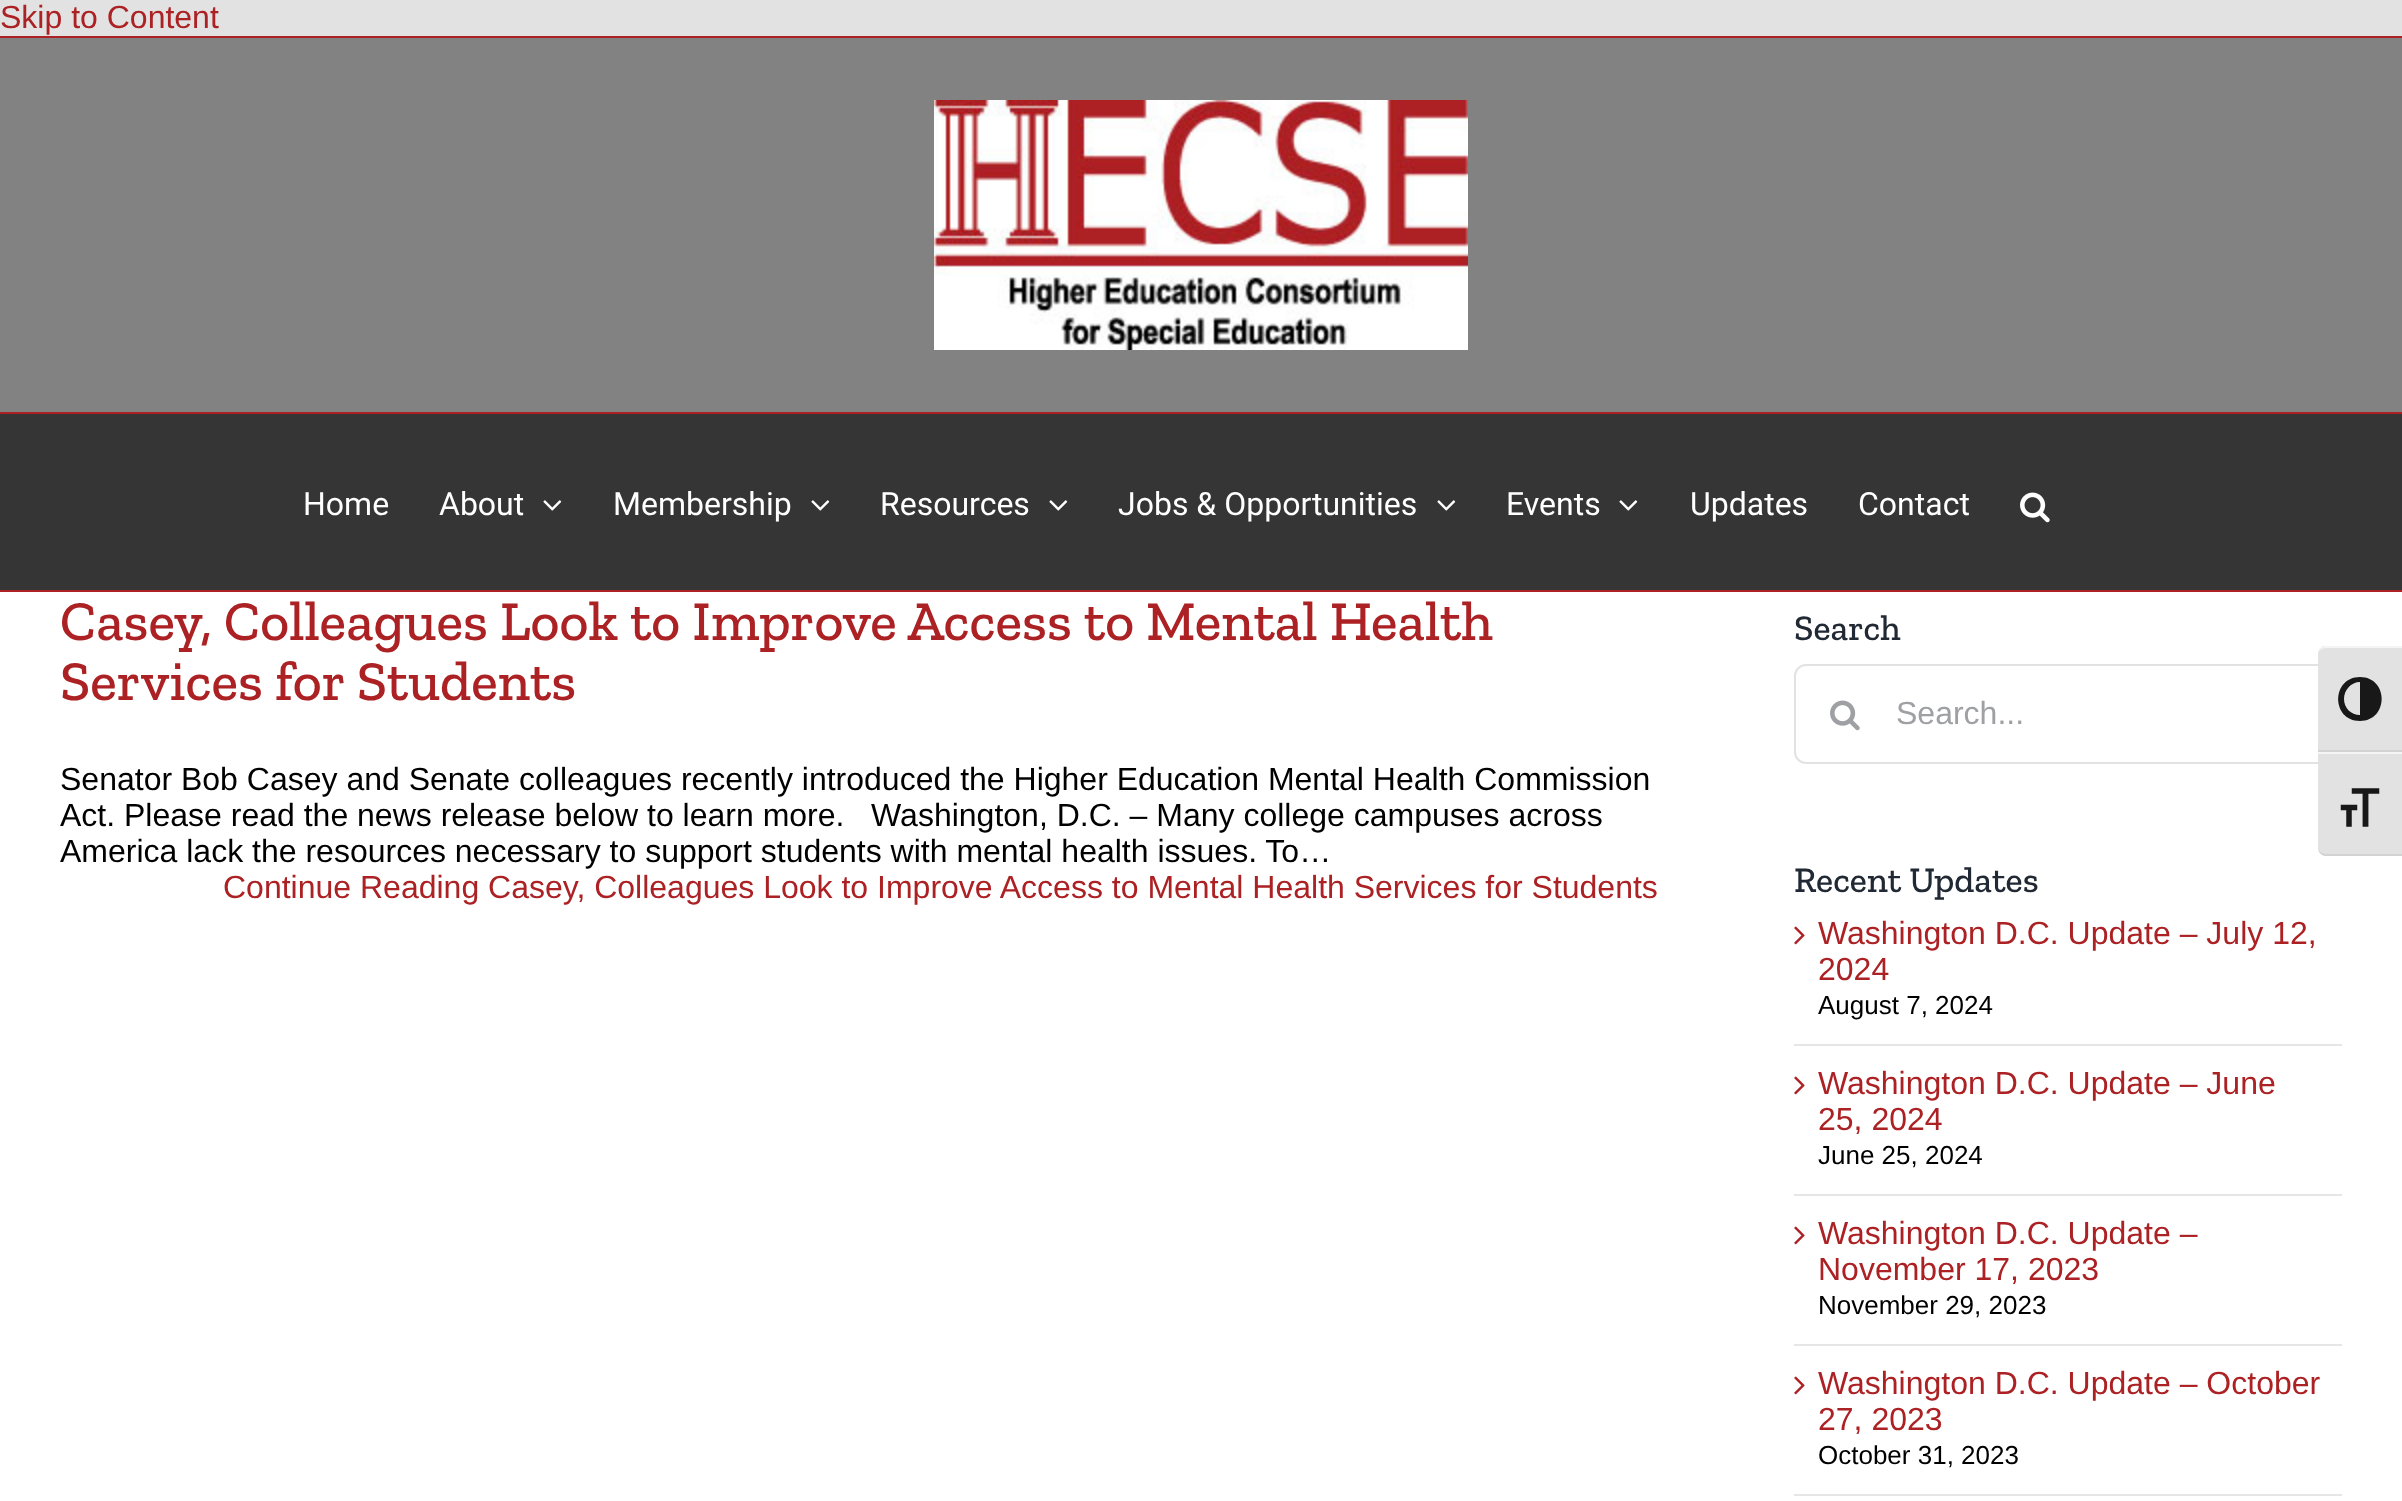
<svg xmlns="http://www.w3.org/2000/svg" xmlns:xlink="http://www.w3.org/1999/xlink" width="2402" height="1501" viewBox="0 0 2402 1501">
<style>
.cls-1{font:32px Liberation Sans;fill:#ac2124}
.cls-2{font:32px Roboto;fill:#ffffff}
.cls-3{font:500 56px Zilla Slab;fill:#ac2124}
.cls-4{font:32px Liberation Sans;fill:#000000}
.cls-5{font:500 36px Zilla Slab;fill:#212934}
.cls-6{font:32px Liberation Sans;fill:#9ea0a4}
.cls-7{font:26px Liberation Sans;fill:#000000}
</style>
<rect width="100%" height="100%" fill="#e2e2e2"/>
<rect fill="#ffffff" x="0" y="592" width="2402" height="909"/>
<rect fill="#ac2124" x="0" y="36" width="2402" height="2"/>
<rect fill="#828282" x="0" y="38" width="2402" height="374"/>
<rect fill="#ad2024" x="0" y="412" width="2402" height="2"/>
<image xlink:href="image0.png" x="934" y="100" width="534" height="250"/>
<rect fill="#353535" x="0" y="414" width="2402" height="176"/>
<rect fill="#ad2024" x="0" y="590" width="2402" height="2"/>
<image xlink:href="image1.png" x="543" y="500" width="19" height="11"/>
<image xlink:href="image1.png" x="811" y="500" width="19" height="11"/>
<image xlink:href="image1.png" x="1049" y="500" width="19" height="11"/>
<image xlink:href="image1.png" x="1437" y="500" width="19" height="11"/>
<image xlink:href="image1.png" x="1619" y="500" width="19" height="11"/>
<image xlink:href="image2.png" x="2020" y="492" width="30" height="31"/>
<rect fill="none" stroke="#e2e2e2" stroke-width="2" x="1795" y="665" width="546" height="98" rx="11"/>
<image xlink:href="image3.png" x="1830" y="700" width="30" height="31"/>
<rect fill="#e7e6e6" x="1794" y="1044" width="548" height="2"/>
<image xlink:href="image4.png" x="1794" y="926" width="11" height="19"/>
<rect fill="#e7e6e6" x="1794" y="1194" width="548" height="2"/>
<image xlink:href="image4.png" x="1794" y="1076" width="11" height="19"/>
<rect fill="#e7e6e6" x="1794" y="1344" width="548" height="2"/>
<image xlink:href="image4.png" x="1794" y="1226" width="11" height="19"/>
<rect fill="#e7e6e6" x="1794" y="1494" width="548" height="2"/>
<image xlink:href="image4.png" x="1794" y="1376" width="11" height="19"/>
<path fill="#e2e2e2" d="M2326 646H2402V752H2318V654C2318 649.5 2321.5 646 2326 646Z"/>
<path fill="#f5f5f5" d="M2326 648H2402V646H2326C2322 646 2318 650 2318 654C2318 651 2322 648 2326 648Z"/>
<rect fill="#d2d2d2" x="2318" y="750" width="84" height="2"/>
<path fill="#181818" d="M2360 677C2331 677 2331 721 2360 721C2389 721 2389 677 2360 677ZM2344 699C2344 690 2351 682 2360 682V715C2351 715 2344 708 2344 699Z"/>
<path fill="#e2e2e2" d="M2318 752H2402V856H2326C2321.5 856 2318 852.5 2318 848Z"/>
<rect fill="#f5f5f5" x="2318" y="752" width="84" height="2"/>
<path fill="#d2d2d2" d="M2402 856V854H2326C2322 854 2318 851 2318 848C2318 852 2322 856 2326 856Z"/>
<image xlink:href="image5.png" x="2340" y="788" width="40" height="39"/>
<text class="cls-1" x="0" y="28">Skip to Content</text>
<text class="cls-2" x="303" y="515">Home</text>
<text class="cls-2" x="439" y="515">About</text>
<text class="cls-2" x="613" y="515">Membership</text>
<text class="cls-2" x="880" y="515">Resources</text>
<text class="cls-2" x="1118" y="515">Jobs &amp; Opportunities</text>
<text class="cls-2" x="1506" y="515">Events</text>
<text class="cls-2" x="1690" y="515">Updates</text>
<text class="cls-2" x="1858" y="515">Contact</text>
<text class="cls-3"><tspan x="60" y="640">Casey, Colleagues Look to Improve Access to Mental Health</tspan><tspan x="60" y="700">Services for Students</tspan></text>
<text class="cls-4" xml:space="preserve"><tspan x="60" y="790">Senator Bob Casey and Senate colleagues recently introduced the Higher Education Mental Health Commission</tspan><tspan x="60" y="826">Act. Please read the news release below to learn more.   Washington, D.C. – Many college campuses across</tspan><tspan x="60" y="862">America lack the resources necessary to support students with mental health issues. To…</tspan></text>
<text class="cls-1" x="223" y="898">Continue Reading Casey, Colleagues Look to Improve Access to Mental Health Services for Students</text>
<text class="cls-5" x="1794" y="640">Search</text>
<text class="cls-6" x="1896" y="724">Search...</text>
<text class="cls-5" x="1794" y="892">Recent Updates</text>
<text class="cls-1"><tspan x="1818" y="944">Washington D.C. Update – July 12,</tspan><tspan x="1818" y="980">2024</tspan></text>
<text class="cls-7" x="1818" y="1014">August 7, 2024</text>
<text class="cls-1"><tspan x="1818" y="1094">Washington D.C. Update – June</tspan><tspan x="1818" y="1130">25, 2024</tspan></text>
<text class="cls-7" x="1818" y="1164">June 25, 2024</text>
<text class="cls-1"><tspan x="1818" y="1244">Washington D.C. Update –</tspan><tspan x="1818" y="1280">November 17, 2023</tspan></text>
<text class="cls-7" x="1818" y="1314">November 29, 2023</text>
<text class="cls-1"><tspan x="1818" y="1394">Washington D.C. Update – October</tspan><tspan x="1818" y="1430">27, 2023</tspan></text>
<text class="cls-7" x="1818" y="1464">October 31, 2023</text>
</svg>
